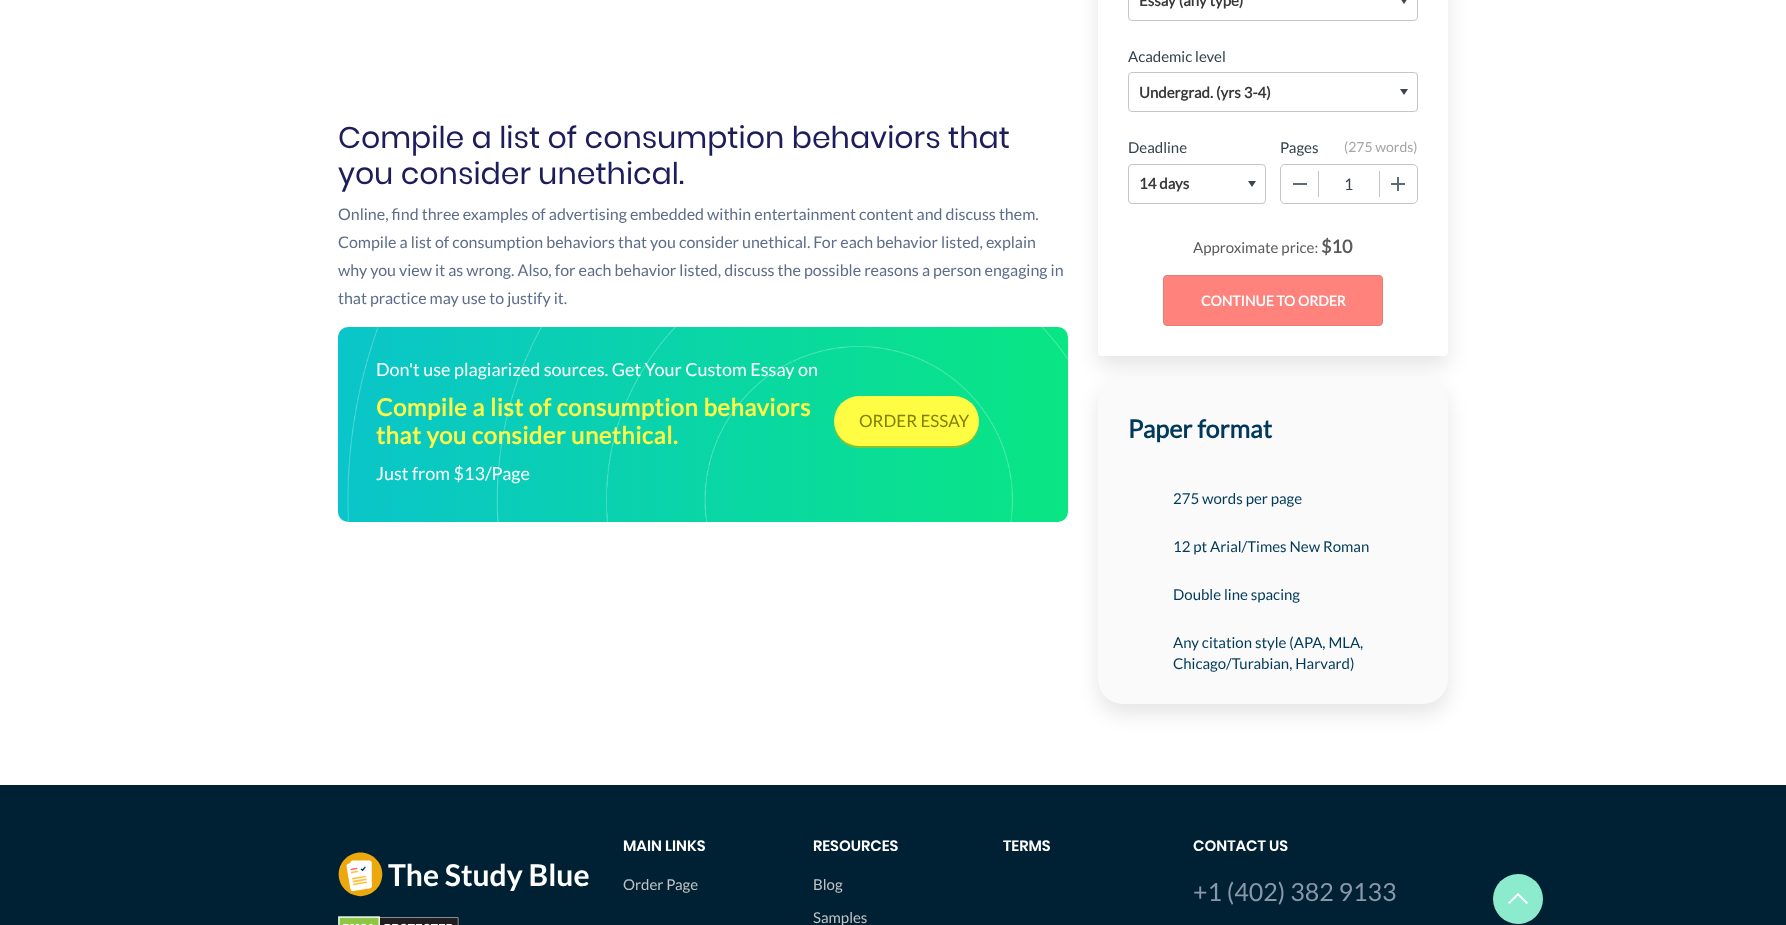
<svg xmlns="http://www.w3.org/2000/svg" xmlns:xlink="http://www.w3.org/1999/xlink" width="1786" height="925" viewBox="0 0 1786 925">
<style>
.cls-1{font:30px Poppins;fill:#1d1d5c}
.cls-2{font:16px Lato;fill:#5e6d89}
.cls-3{font:18px Lato;fill:#ffffff}
.cls-4{font:bold 24px Lato;letter-spacing:0.5px;fill:#fffc45}
.cls-5{font:17px Lato;fill:#838100}
.cls-6{font:bold 15px Lato;fill:#383838}
.cls-7{font:15px Lato;fill:#32424b}
.cls-8{font:14px Lato;fill:#a5a5a5}
.cls-9{font:16px Lato;fill:#3e454c}
.cls-10{font:15px Lato;fill:#5a5a5a}
.cls-11{font:bold 18px Lato;fill:#5a5a5a}
.cls-12{font:bold 14px Lato;fill:#ffffff}
.cls-13{font:bold 25px Lato;fill:#00395a}
.cls-14{font:15px Lato;fill:#00395a}
.cls-15{font:600 15px Poppins;fill:#ffffff}
.cls-16{font:15px Lato;fill:#c3c3c3}
.cls-17{font:25px Lato;fill:#8898aa}
</style>
<defs>
<linearGradient id="g1" gradientUnits="userSpaceOnUse" x1="338" y1="425" x2="1068" y2="425"><stop offset="0" stop-color="#0ac5ca"/><stop offset="1" stop-color="#09e683"/></linearGradient>
</defs>
<rect width="100%" height="100%" fill="#ffffff"/>
<rect fill="url(#g1)" x="338" y="327" width="730" height="195" rx="10"/>
<rect fill="#002034" x="0" y="785" width="1786" height="140"/>
<image xlink:href="image1.png" x="338" y="852" width="251" height="45"/>
<image xlink:href="image2.png" x="338" y="916" width="121" height="9"/>
<circle fill="#8cebcd" cx="1518" cy="899" r="25"/>
<image xlink:href="image3.png" x="1508" y="893" width="20" height="11"/>
<text class="cls-1"><tspan x="338" y="148">Compile a list of consumption behaviors that</tspan><tspan x="338" y="184">you consider unethical.</tspan></text>
<text class="cls-2"><tspan x="338" y="220">Online, find three examples of advertising embedded within entertainment content and discuss them.</tspan><tspan x="338" y="248">Compile a list of consumption behaviors that you consider unethical. For each behavior listed, explain</tspan><tspan x="338" y="276">why you view it as wrong. Also, for each behavior listed, discuss the possible reasons a person engaging in</tspan><tspan x="338" y="304">that practice may use to justify it.</tspan></text>
<text class="cls-3" x="376" y="376">Don't use plagiarized sources. Get Your Custom Essay on</text>
<text class="cls-4"><tspan x="376" y="416">Compile a list of consumption behaviors</tspan><tspan x="376" y="444">that you consider unethical.</tspan></text>
<text class="cls-3" x="376" y="480">Just from $13/Page</text>
<image xlink:href="image0.png" x="347" y="327" width="721" height="195"/>
<path fill="#89c32e" d="M834 422V423C834 437 845 448 859 448H954C968 448 979 437 979 423V422C978 435 967 446 954 446H859C846 446 835 435 834 422Z"/>
<rect fill="#fffc44" x="834" y="396" width="145" height="50" rx="25"/>
<text class="cls-5" x="859" y="427">ORDER ESSAY</text>
<rect fill="#000000" fill-opacity="0.1" filter="blur(10px)" x="1098" y="-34" width="350" height="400" rx="4"/>
<rect fill="#ffffff" x="1098" y="-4" width="350" height="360" rx="4"/>
<path fill="#3e454c" d="M1400-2H1408L1404 4Z"/>
<rect fill="none" stroke="#c5c5c5" x="1128.5" y="-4.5" width="289" height="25" rx="3.5"/>
<text class="cls-6" x="1139" y="6">Essay (any type)</text>
<text class="cls-7" x="1128" y="62">Academic level</text>
<path fill="#3e454c" d="M1400 89H1408L1404 95Z"/>
<rect fill="none" stroke="#c5c5c5" x="1128.5" y="72.5" width="289" height="39" rx="3.5"/>
<text class="cls-6" x="1139" y="98">Undergrad. (yrs 3-4)</text>
<text class="cls-7" x="1128" y="153">Deadline</text>
<path fill="#3e454c" d="M1248 181H1256L1252 187Z"/>
<rect fill="none" stroke="#c5c5c5" x="1128.5" y="164.5" width="137" height="39" rx="3.5"/>
<text class="cls-6" x="1139" y="189">14 days</text>
<text class="cls-7" x="1280" y="153">Pages</text>
<text class="cls-8" x="1344" y="152">(275 words)</text>
<rect fill="none" stroke="#c5c5c5" x="1280.5" y="164.5" width="137" height="39" rx="4.5"/>
<rect fill="#606b76" x="1293" y="183" width="14" height="2"/>
<rect fill="#c5c5c5" x="1318" y="171" width="1" height="26"/>
<text class="cls-9" x="1344" y="190">1</text>
<rect fill="#c5c5c5" x="1379" y="171" width="1" height="26"/>
<rect fill="#606b76" x="1391" y="183" width="14" height="2"/>
<rect fill="#606b76" x="1397" y="177" width="2" height="14"/>
<text class="cls-10" x="1193" y="253">Approximate price:</text>
<text class="cls-11" x="1321" y="253">$10</text>
<rect fill="#ff827d" stroke="#e37c76" x="1163.5" y="275.5" width="219" height="50" rx="3.5"/>
<text class="cls-12" x="1201" y="306">CONTINUE TO ORDER</text>
<rect fill="#000000" fill-opacity="0.1" filter="blur(10px)" x="1098" y="386" width="350" height="328" rx="25"/>
<rect fill="#fafafa" x="1098" y="376" width="350" height="328" rx="25"/>
<text class="cls-13" x="1128" y="438">Paper format</text>
<text class="cls-14" x="1173" y="504">275 words per page</text>
<text class="cls-14" x="1173" y="552">12 pt Arial/Times New Roman</text>
<text class="cls-14" x="1173" y="600">Double line spacing</text>
<text class="cls-14"><tspan x="1173" y="648">Any citation style (APA, MLA,</tspan><tspan x="1173" y="669">Chicago/Turabian, Harvard)</tspan></text>
<text class="cls-15" x="623" y="851">MAIN LINKS</text>
<text class="cls-16" x="623" y="890">Order Page</text>
<text class="cls-15" x="813" y="851">RESOURCES</text>
<text class="cls-16" x="813" y="890">Blog</text>
<text class="cls-16" x="813" y="923">Samples</text>
<text class="cls-15" x="1003" y="851">TERMS</text>
<text class="cls-15" x="1193" y="851">CONTACT US</text>
<text class="cls-17" x="1193" y="901">+1 (402) 382 9133</text>
</svg>
